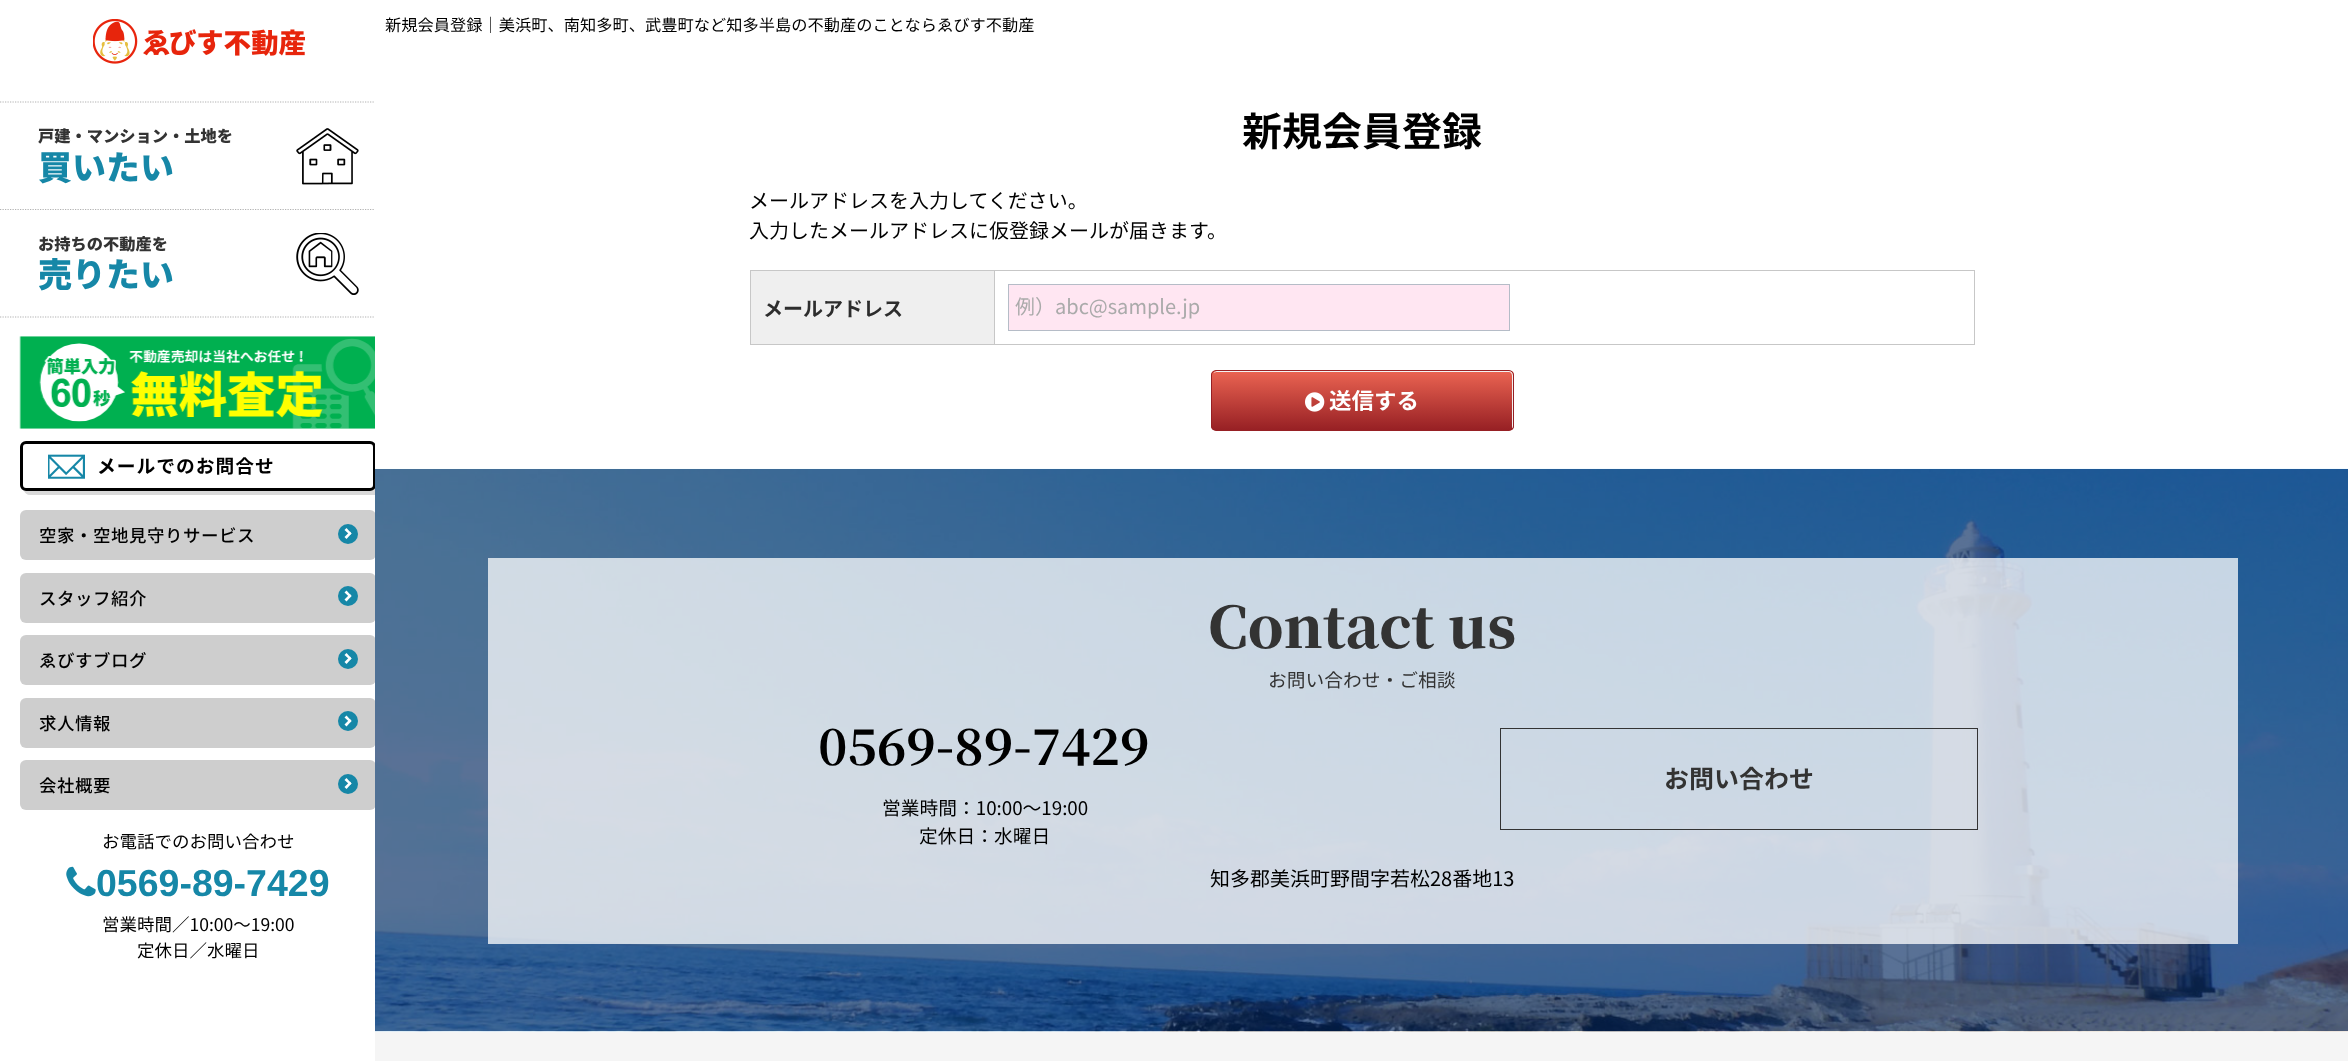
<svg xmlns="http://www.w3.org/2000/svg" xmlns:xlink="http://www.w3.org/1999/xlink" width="2348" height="1061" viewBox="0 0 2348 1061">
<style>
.cls-1{font:16.25px Noto Sans JP;fill:#000000}
.cls-2{font:900 16.25px Noto Sans JP;fill:#333333}
.cls-3{font:900 34px Noto Sans JP;fill:#1687a7}
.cls-4{font:bold 18.75px Noto Sans JP;letter-spacing:1px;fill:#000000}
.cls-5{font:500 17.5px Noto Sans JP;letter-spacing:0.5px;fill:#000000}
.cls-6{font:17.5px Noto Sans JP;fill:#000000}
.cls-7{font:bold 37.5px Liberation Sans;fill:#1687a7}
.cls-8{font:bold 40px Noto Sans JP;fill:#000000}
.cls-9{font:20px Noto Sans JP;fill:#000000}
.cls-10{font:bold 20px Noto Sans JP;fill:#2d2d2d}
.cls-11{font:20px Noto Sans JP;fill:#aaaaaa}
.cls-12{font:bold 22.5px Noto Sans JP;fill:#ffffff}
.cls-13{font:900 56.25px Noto Serif JP;fill:#333333}
.cls-14{font:18.75px Noto Sans JP;fill:#333333}
.cls-15{font:bold 50px Noto Serif JP;fill:#000000}
.cls-16{font:18.75px Noto Sans JP;fill:#000000}
.cls-17{font:bold 25px Noto Sans JP;fill:#333333}
</style>
<defs>
<clipPath id="clip1"><rect x="0" y="0" width="375" height="1061"/></clipPath>
<clipPath id="clip2"><rect x="1211" y="370" width="303" height="61" rx="5"/></clipPath>
<linearGradient id="g1" gradientUnits="userSpaceOnUse" x1="1363" y1="371" x2="1363" y2="430"><stop offset="0" stop-color="#eb6452"/><stop offset="1" stop-color="#972024"/></linearGradient>
</defs>
<rect width="100%" height="100%" fill="#ffffff"/>
<image xlink:href="image0.png" x="93" y="19" width="212" height="45"/>
<g clip-path="url(#clip1)">
<path fill="none" stroke="#b2b2b2" stroke-width="1.2" stroke-dasharray="1.25 1.25" d="M0 102H396"/>
<path fill="none" stroke="#b2b2b2" stroke-width="1.2" stroke-dasharray="1.25 1.25" d="M0 209.5H396"/>
</g>
<image xlink:href="image1.png" x="296" y="128" width="63" height="57"/>
<g clip-path="url(#clip1)">
<path fill="none" stroke="#b2b2b2" stroke-width="1.2" stroke-dasharray="1.25 1.25" d="M0 317H396"/>
</g>
<image xlink:href="image2.png" x="296" y="233" width="63" height="62"/>
<image xlink:href="image3.png" x="19" y="336" width="356" height="93"/>
<g clip-path="url(#clip1)">
<path fill="#d9d9d9" d="M24 491C25 493 27 495 30 495H374C377 495 380 492 380 489V451C380 448 378 446 376 445V472C376 478 379 491 370 491Z"/>
</g>
<rect fill="#f5f5f5" x="375" y="1031" width="1973" height="30"/>
<image xlink:href="image7.png" x="375" y="468" width="1973" height="564"/>
<g clip-path="url(#clip1)">
<rect fill="none" stroke="#000000" stroke-width="3" x="21.5" y="442.5" width="353" height="47" rx="4.5"/>
</g>
<image xlink:href="image4.png" x="48" y="454" width="37" height="25"/>
<g clip-path="url(#clip1)">
<rect fill="#cecece" x="20" y="510" width="356" height="50" rx="6"/>
</g>
<circle fill="#1687a7" cx="348" cy="534" r="10"/>
<path fill="#ffffff" d="M346.5 528L351.5 533.5L350 535L344.5 530Z"/>
<path fill="#ffffff" d="M350 531.5L351.5 533.5L346.5 539L344.5 537Z"/>
<g clip-path="url(#clip1)">
<rect fill="#cecece" x="20" y="573" width="356" height="50" rx="6"/>
</g>
<circle fill="#1687a7" cx="348" cy="596" r="10"/>
<path fill="#ffffff" d="M346.5 590.5L351.5 596L350 597.5L344.5 592.5Z"/>
<path fill="#ffffff" d="M350 594L351.5 596L346.5 601.5L344.5 599.5Z"/>
<g clip-path="url(#clip1)">
<rect fill="#cecece" x="20" y="635" width="356" height="50" rx="6"/>
</g>
<circle fill="#1687a7" cx="348" cy="659" r="10"/>
<path fill="#ffffff" d="M346.5 653L351.5 658.5L350 660L344.5 655Z"/>
<path fill="#ffffff" d="M350 656.5L351.5 658.5L346.5 664L344.5 662Z"/>
<g clip-path="url(#clip1)">
<rect fill="#cecece" x="20" y="698" width="356" height="50" rx="6"/>
</g>
<circle fill="#1687a7" cx="348" cy="721" r="10"/>
<path fill="#ffffff" d="M346.5 715.5L351.5 721L350 722.5L344.5 717.5Z"/>
<path fill="#ffffff" d="M350 719L351.5 721L346.5 726.5L344.5 724.5Z"/>
<g clip-path="url(#clip1)">
<rect fill="#cecece" x="20" y="760" width="356" height="50" rx="6"/>
</g>
<circle fill="#1687a7" cx="348" cy="784" r="10"/>
<path fill="#ffffff" d="M346.5 778L351.5 783.5L350 785L344.5 780Z"/>
<path fill="#ffffff" d="M350 781.5L351.5 783.5L346.5 789L344.5 787Z"/>
<image xlink:href="image5.png" x="66" y="866" width="30" height="31"/>
<rect fill="#efefef" x="751" y="271" width="243" height="73"/>
<rect fill="#c7c7c7" x="994" y="270" width="981" height="1"/>
<rect fill="#c7c7c7" x="1974" y="270" width="1" height="75"/>
<rect fill="#c7c7c7" x="994" y="344" width="981" height="1"/>
<rect fill="#c7c7c7" x="994" y="270" width="1" height="75"/>
<rect fill="#c7c7c7" x="750" y="270" width="245" height="1"/>
<rect fill="#c7c7c7" x="750" y="344" width="245" height="1"/>
<rect fill="#c7c7c7" x="750" y="270" width="1" height="75"/>
<rect fill="#ffe6f2" stroke="#b5bcc7" x="1008.5" y="284.5" width="501" height="46"/>
<g clip-path="url(#clip2)">
<rect fill="url(#g1)" x="1211" y="371" width="303" height="59"/>
</g>
<path fill="#f3f3f3" d="M1216 372H1509C1511 372 1512 374 1512 376V429C1513 428 1513 427 1513 426V375C1513 373 1511 371 1509 371H1217C1216 371 1214 372 1214 373Z"/>
<rect fill="none" stroke="#972024" x="1211.5" y="370.5" width="302" height="60" rx="4.5"/>
<image xlink:href="image6.png" x="1305" y="392" width="20" height="20"/>
<rect fill="#ffffff" fill-opacity="0.75" x="488" y="558" width="1750" height="386"/>
<rect fill="none" stroke="#333333" x="1500.5" y="728.5" width="477" height="101"/>
<text class="cls-1" x="385" y="31">新規会員登録｜美浜町、南知多町、武豊町など知多半島の不動産のことならゑびす不動産</text>
<text class="cls-2" x="38" y="142">戸建・マンション・土地を</text>
<text class="cls-3" x="38" y="180">買いたい</text>
<text class="cls-2" x="38" y="250">お持ちの不動産を</text>
<text class="cls-3" x="38" y="287">売りたい</text>
<text class="cls-4" x="97" y="473">メールでのお問合せ</text>
<text class="cls-5" x="39" y="542">空家・空地見守りサービス</text>
<text class="cls-5" x="39" y="605">スタッフ紹介</text>
<text class="cls-5" x="39" y="667">ゑびすブログ</text>
<text class="cls-5" x="39" y="730">求人情報</text>
<text class="cls-5" x="39" y="792">会社概要</text>
<text class="cls-6" x="102" y="848">お電話でのお問い合わせ</text>
<text class="cls-7" x="96" y="896">0569-89-7429</text>
<text class="cls-6" x="102" y="931">営業時間／10:00〜19:00</text>
<text class="cls-6" x="137" y="957">定休日／水曜日</text>
<text class="cls-8" x="1242" y="146">新規会員登録</text>
<text class="cls-9"><tspan x="749" y="208">メールアドレスを入力してください。</tspan><tspan x="749" y="238">入力したメールアドレスに仮登録メールが届きます。</tspan></text>
<text class="cls-10" x="763" y="316">メールアドレス</text>
<text class="cls-11" x="1015" y="314">例）abc@sample.jp</text>
<text class="cls-12" x="1329" y="409">送信する</text>
<text class="cls-13" x="1208" y="648">Contact us</text>
<text class="cls-14" x="1268" y="687">お問い合わせ・ご相談</text>
<text class="cls-15" x="818" y="765">0569-89-7429</text>
<text class="cls-16" x="882" y="815">営業時間：10:00〜19:00</text>
<text class="cls-16" x="919" y="843">定休日：水曜日</text>
<text class="cls-17" x="1664" y="788">お問い合わせ</text>
<text class="cls-9" x="1210" y="886">知多郡美浜町野間字若松28番地13</text>
</svg>
